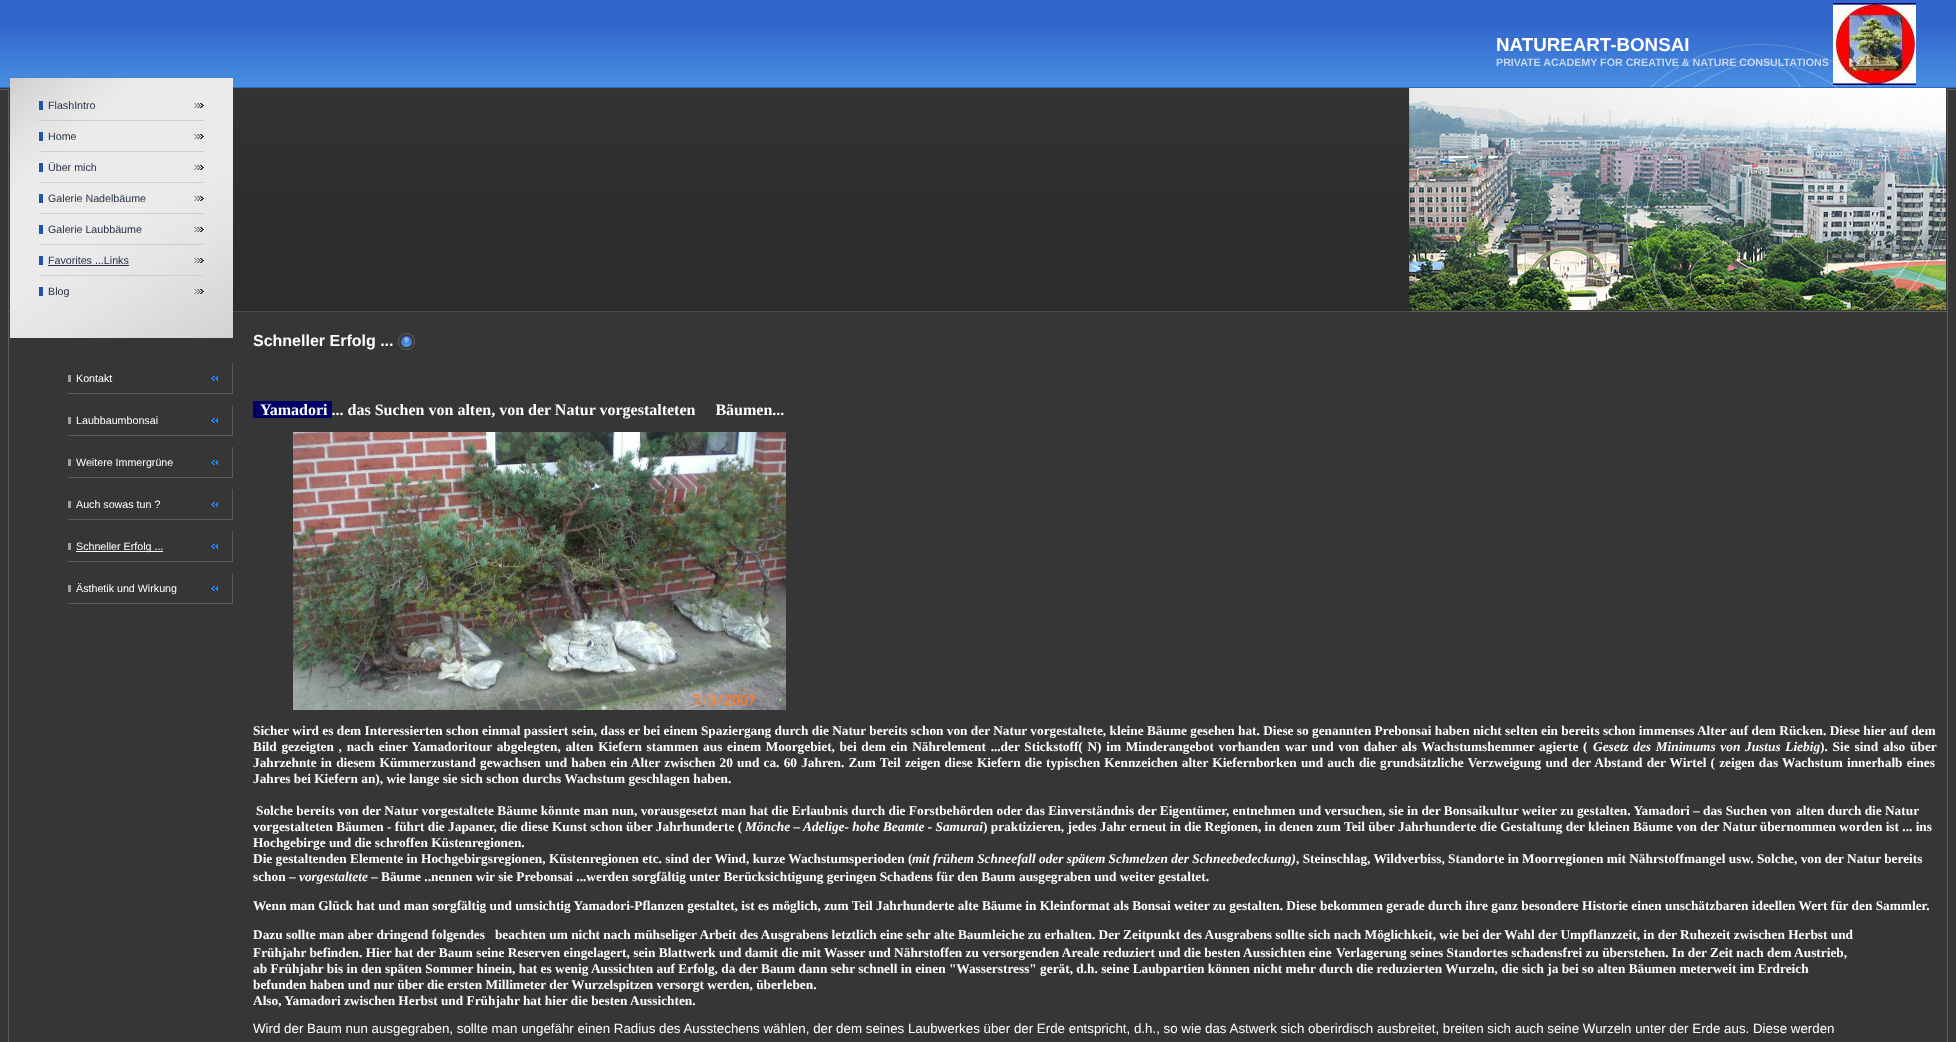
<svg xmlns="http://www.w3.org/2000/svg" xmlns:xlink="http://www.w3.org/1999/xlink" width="1956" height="1042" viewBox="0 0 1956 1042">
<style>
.cls-1{font:10.7px Liberation Sans;fill:#273243}
.cls-2{font:10.7px Liberation Sans;fill:#ffffff}
.cls-3{font:bold 18.75px Liberation Sans;fill:#ffffff}
.cls-4{font:bold 10.7px Liberation Sans;fill:#c5d6f2}
.cls-5{font:bold 16px Liberation Sans;fill:#ffffff}
.cls-6{font:bold 16px Liberation Serif;fill:#ffffff}
.cls-7{font:bold 13.33px Liberation Serif;fill:#ffffff}
.cls-8{font:italic bold 13.33px Liberation Serif;fill:#ffffff}
.cls-9{font:13.33px Liberation Sans;fill:#ffffff}
</style>
<rect width="100%" height="100%" fill="#363636"/>
<rect fill="#5e5e5e" x="8" y="338" width="1" height="704"/>
<rect fill="#3366cc" x="0" y="0" width="233" height="28"/>
<image xlink:href="image0.png" x="0" y="28" width="233" height="62"/>
<image xlink:href="image1.png" x="0" y="90" width="233" height="248"/>
<rect fill="#1f54ab" x="39" y="101" width="4" height="9"/>
<image xlink:href="image2.png" x="194" y="103" width="10" height="5"/>
<rect fill="#cecece" x="39" y="120" width="165" height="1"/>
<rect fill="#1f54ab" x="39" y="132" width="4" height="9"/>
<image xlink:href="image2.png" x="194" y="134" width="10" height="5"/>
<rect fill="#cecece" x="39" y="151" width="165" height="1"/>
<rect fill="#1f54ab" x="39" y="163" width="4" height="9"/>
<image xlink:href="image2.png" x="194" y="165" width="10" height="5"/>
<rect fill="#cecece" x="39" y="182" width="165" height="1"/>
<rect fill="#1f54ab" x="39" y="194" width="4" height="9"/>
<image xlink:href="image2.png" x="194" y="196" width="10" height="5"/>
<rect fill="#cecece" x="39" y="213" width="165" height="1"/>
<rect fill="#1f54ab" x="39" y="225" width="4" height="9"/>
<image xlink:href="image2.png" x="194" y="227" width="10" height="5"/>
<rect fill="#cecece" x="39" y="244" width="165" height="1"/>
<rect fill="#1f54ab" x="39" y="256" width="4" height="9"/>
<rect fill="#273243" x="48" y="265" width="81" height="1"/>
<image xlink:href="image2.png" x="194" y="258" width="10" height="5"/>
<rect fill="#cecece" x="39" y="275" width="165" height="1"/>
<rect fill="#1f54ab" x="39" y="287" width="4" height="9"/>
<image xlink:href="image2.png" x="194" y="289" width="10" height="5"/>
<rect fill="#a0a0a0" x="68" y="375" width="3" height="7"/>
<rect fill="#5a5a5a" x="232" y="363" width="1" height="30"/>
<image xlink:href="image3.png" x="211" y="376" width="7" height="5"/>
<rect fill="#5a5a5a" x="68" y="393" width="165" height="1"/>
<rect fill="#a0a0a0" x="68" y="417" width="3" height="7"/>
<rect fill="#5a5a5a" x="232" y="405" width="1" height="30"/>
<image xlink:href="image3.png" x="211" y="418" width="7" height="5"/>
<rect fill="#5a5a5a" x="68" y="435" width="165" height="1"/>
<rect fill="#a0a0a0" x="68" y="459" width="3" height="7"/>
<rect fill="#5a5a5a" x="232" y="447" width="1" height="30"/>
<image xlink:href="image3.png" x="211" y="460" width="7" height="5"/>
<rect fill="#5a5a5a" x="68" y="477" width="165" height="1"/>
<rect fill="#a0a0a0" x="68" y="501" width="3" height="7"/>
<rect fill="#5a5a5a" x="232" y="489" width="1" height="30"/>
<image xlink:href="image3.png" x="211" y="502" width="7" height="5"/>
<rect fill="#5a5a5a" x="68" y="519" width="165" height="1"/>
<rect fill="#a0a0a0" x="68" y="543" width="3" height="7"/>
<rect fill="#ffffff" x="76" y="551" width="87" height="1"/>
<rect fill="#5a5a5a" x="232" y="531" width="1" height="30"/>
<image xlink:href="image3.png" x="211" y="544" width="7" height="5"/>
<rect fill="#5a5a5a" x="68" y="561" width="165" height="1"/>
<rect fill="#a0a0a0" x="68" y="585" width="3" height="7"/>
<rect fill="#5a5a5a" x="232" y="573" width="1" height="30"/>
<image xlink:href="image3.png" x="211" y="586" width="7" height="5"/>
<rect fill="#5a5a5a" x="68" y="603" width="165" height="1"/>
<rect fill="#5e5e5e" x="1947" y="312" width="1" height="730"/>
<rect fill="#3366cc" x="233" y="0" width="1723" height="88"/>
<image xlink:href="image4.png" x="233" y="28" width="1723" height="59"/>
<image xlink:href="image5.png" x="1634" y="40" width="322" height="48"/>
<image xlink:href="image6.png" x="1833" y="3" width="83" height="82"/>
<image xlink:href="image7.png" x="233" y="88" width="1176" height="224"/>
<image xlink:href="image8.png" x="1409" y="88" width="547" height="224"/>
<image xlink:href="image9.png" x="398" y="333" width="17" height="17"/>
<rect fill="#000066" x="253" y="401" width="79" height="17"/>
<image xlink:href="image10.png" x="293" y="432" width="493" height="278"/>
<text class="cls-1" x="48" y="109">FlashIntro</text>
<text class="cls-1" x="48" y="140">Home</text>
<text class="cls-1" x="48" y="171">Über mich</text>
<text class="cls-1" x="48" y="202">Galerie Nadelbäume</text>
<text class="cls-1" x="48" y="233">Galerie Laubbäume</text>
<text class="cls-1" x="48" y="264">Favorites ...Links</text>
<text class="cls-1" x="48" y="295">Blog</text>
<text class="cls-2" x="76" y="382">Kontakt</text>
<text class="cls-2" x="76" y="424">Laubbaumbonsai</text>
<text class="cls-2" x="76" y="466">Weitere Immergrüne</text>
<text class="cls-2" x="76" y="508">Auch sowas tun ?</text>
<text class="cls-2" x="76" y="550">Schneller Erfolg ...</text>
<text class="cls-2" x="76" y="592">Ästhetik und Wirkung</text>
<text class="cls-3" x="1496" y="51">NATUREART-BONSAI</text>
<text class="cls-4" x="1496" y="66">PRIVATE ACADEMY FOR CREATIVE &amp; NATURE CONSULTATIONS</text>
<text class="cls-5" x="253" y="346">Schneller Erfolg ...</text>
<text class="cls-6" xml:space="preserve" x="260" y="415">Yamadori ... das Suchen von alten, von der Natur vorgestalteten     Bäumen...</text>
<text class="cls-7"><tspan x="253" y="735">Sicher wird es dem Interessierten schon einmal passiert sein, dass er bei einem Spaziergang durch die Natur bereits schon von der Natur vorgestaltete, kleine Bäume gesehen hat. Diese so genannten Prebonsai haben nicht selten ein bereits schon immenses Alter auf dem Rücken. Diese hier auf dem</tspan><tspan x="253" y="751" word-spacing="1.35">Bild gezeigten , nach einer Yamadoritour abgelegten, alten Kiefern stammen aus einem Moorgebiet, bei dem ein Nährelement ...der Stickstoff( N) im Minderangebot vorhanden war und von daher als Wachstumshemmer agierte (</tspan></text>
<text class="cls-8" x="1593" y="751" word-spacing="1.35">Gesetz des Minimums von Justus Liebig</text>
<text class="cls-7" x="1820" y="751" word-spacing="1.5">). Sie sind also über</text>
<text class="cls-7"><tspan x="253" y="767" word-spacing="0.85">Jahrzehnte in diesem Kümmerzustand gewachsen und haben ein Alter zwischen 20 und ca. 60 Jahren. Zum Teil zeigen diese Kiefern die typischen Kennzeichen alter Kiefernborken und auch die grundsätzliche Verzweigung und der Abstand der Wirtel ( zeigen das Wachstum innerhalb eines</tspan><tspan x="253" y="783">Jahres bei Kiefern an), wie lange sie sich schon durchs Wachstum geschlagen haben.</tspan></text>
<text class="cls-7" x="256" y="815">Solche bereits von der Natur vorgestaltete Bäume könnte man nun, vorausgesetzt man hat die Erlaubnis durch die Forstbehörden oder das Einverständnis der Eigentümer, entnehmen und versuchen, sie in der Bonsaikultur weiter zu gestalten. Yamadori – das Suchen von</text>
<text class="cls-7" x="1796" y="815">alten durch die Natur</text>
<text class="cls-7" x="253" y="831">vorgestalteten Bäumen - führt die Japaner, die diese Kunst schon über Jahrhunderte (</text>
<text class="cls-8" x="745" y="831">Mönche – Adelige- hohe Beamte - Samurai</text>
<text class="cls-7" x="983" y="831">) praktizieren, jedes Jahr erneut in die Regionen, in denen zum Teil über Jahrhunderte die Gestaltung der kleinen Bäume von der Natur übernommen worden ist ... ins</text>
<text class="cls-7"><tspan x="253" y="847">Hochgebirge und die schroffen Küstenregionen.</tspan><tspan x="253" y="863">Die gestaltenden Elemente in Hochgebirgsregionen, Küstenregionen etc. sind der Wind, kurze Wachstumsperioden (</tspan></text>
<text class="cls-8" x="912" y="863">mit frühem Schneefall oder spätem Schmelzen der Schneebedeckung)</text>
<text class="cls-7" x="1296" y="863">, Steinschlag, Wildverbiss, Standorte in Moorregionen mit Nährstoffmangel usw. Solche, von der Natur bereits</text>
<text class="cls-7" x="253" y="881">schon –</text>
<text class="cls-8" x="299" y="881">vorgestaltete –</text>
<text class="cls-7" x="381" y="881">Bäume ..nennen wir sie Prebonsai ...werden sorgfältig unter Berücksichtigung geringen Schadens für den Baum</text>
<text class="cls-7" x="1019" y="881">ausgegraben und weiter gestaltet.</text>
<text class="cls-7" x="253" y="910">Wenn man Glück hat und man sorgfältig und umsichtig Yamadori-Pflanzen gestaltet, ist es möglich, zum Teil Jahrhunderte alte Bäume in Kleinformat als Bonsai weiter zu gestalten. Diese bekommen gerade durch ihre ganz besondere Historie einen unschätzbaren ideellen Wert für den Sammler.</text>
<text class="cls-7" xml:space="preserve"><tspan x="253" y="939">Dazu sollte man aber dringend folgendes   beachten um nicht nach mühseliger Arbeit des Ausgrabens letztlich eine sehr alte Baumleiche zu erhalten. Der Zeitpunkt des Ausgrabens sollte sich nach Möglichkeit, wie bei der Wahl der Umpflanzzeit, in der Ruhezeit zwischen Herbst und</tspan><tspan x="253" y="957">Frühjahr befinden. Hier hat der Baum seine Reserven eingelagert, sein Blattwerk und damit die mit Wasser und Nährstoffen zu versorgenden Areale reduziert und die besten Aussichten eine</tspan></text>
<text class="cls-7" x="1336" y="957">Verlagerung seines Standortes schadensfrei zu überstehen. In der Zeit nach dem Austrieb,</text>
<text class="cls-7"><tspan x="253" y="973">ab Frühjahr bis in den späten Sommer hinein, hat es wenig Aussichten auf Erfolg, da der Baum dann sehr schnell in einen "Wasserstress" gerät, d.h. seine Laubpartien können nicht mehr durch die reduzierten Wurzeln, die sich ja bei so alten Bäumen meterweit im Erdreich</tspan><tspan x="253" y="989">befunden haben und nur über die ersten Millimeter der Wurzelspitzen versorgt werden, überleben.</tspan><tspan x="253" y="1005">Also, Yamadori zwischen Herbst und Frühjahr hat hier die besten Aussichten.</tspan></text>
<text class="cls-9" x="253" y="1033">Wird der Baum nun ausgegraben, sollte man ungefähr einen Radius des Ausstechens wählen, der dem seines Laubwerkes über der Erde entspricht, d.h., so wie das Astwerk sich oberirdisch ausbreitet, breiten sich auch seine Wurzeln unter der Erde aus. Diese werden</text>
</svg>
